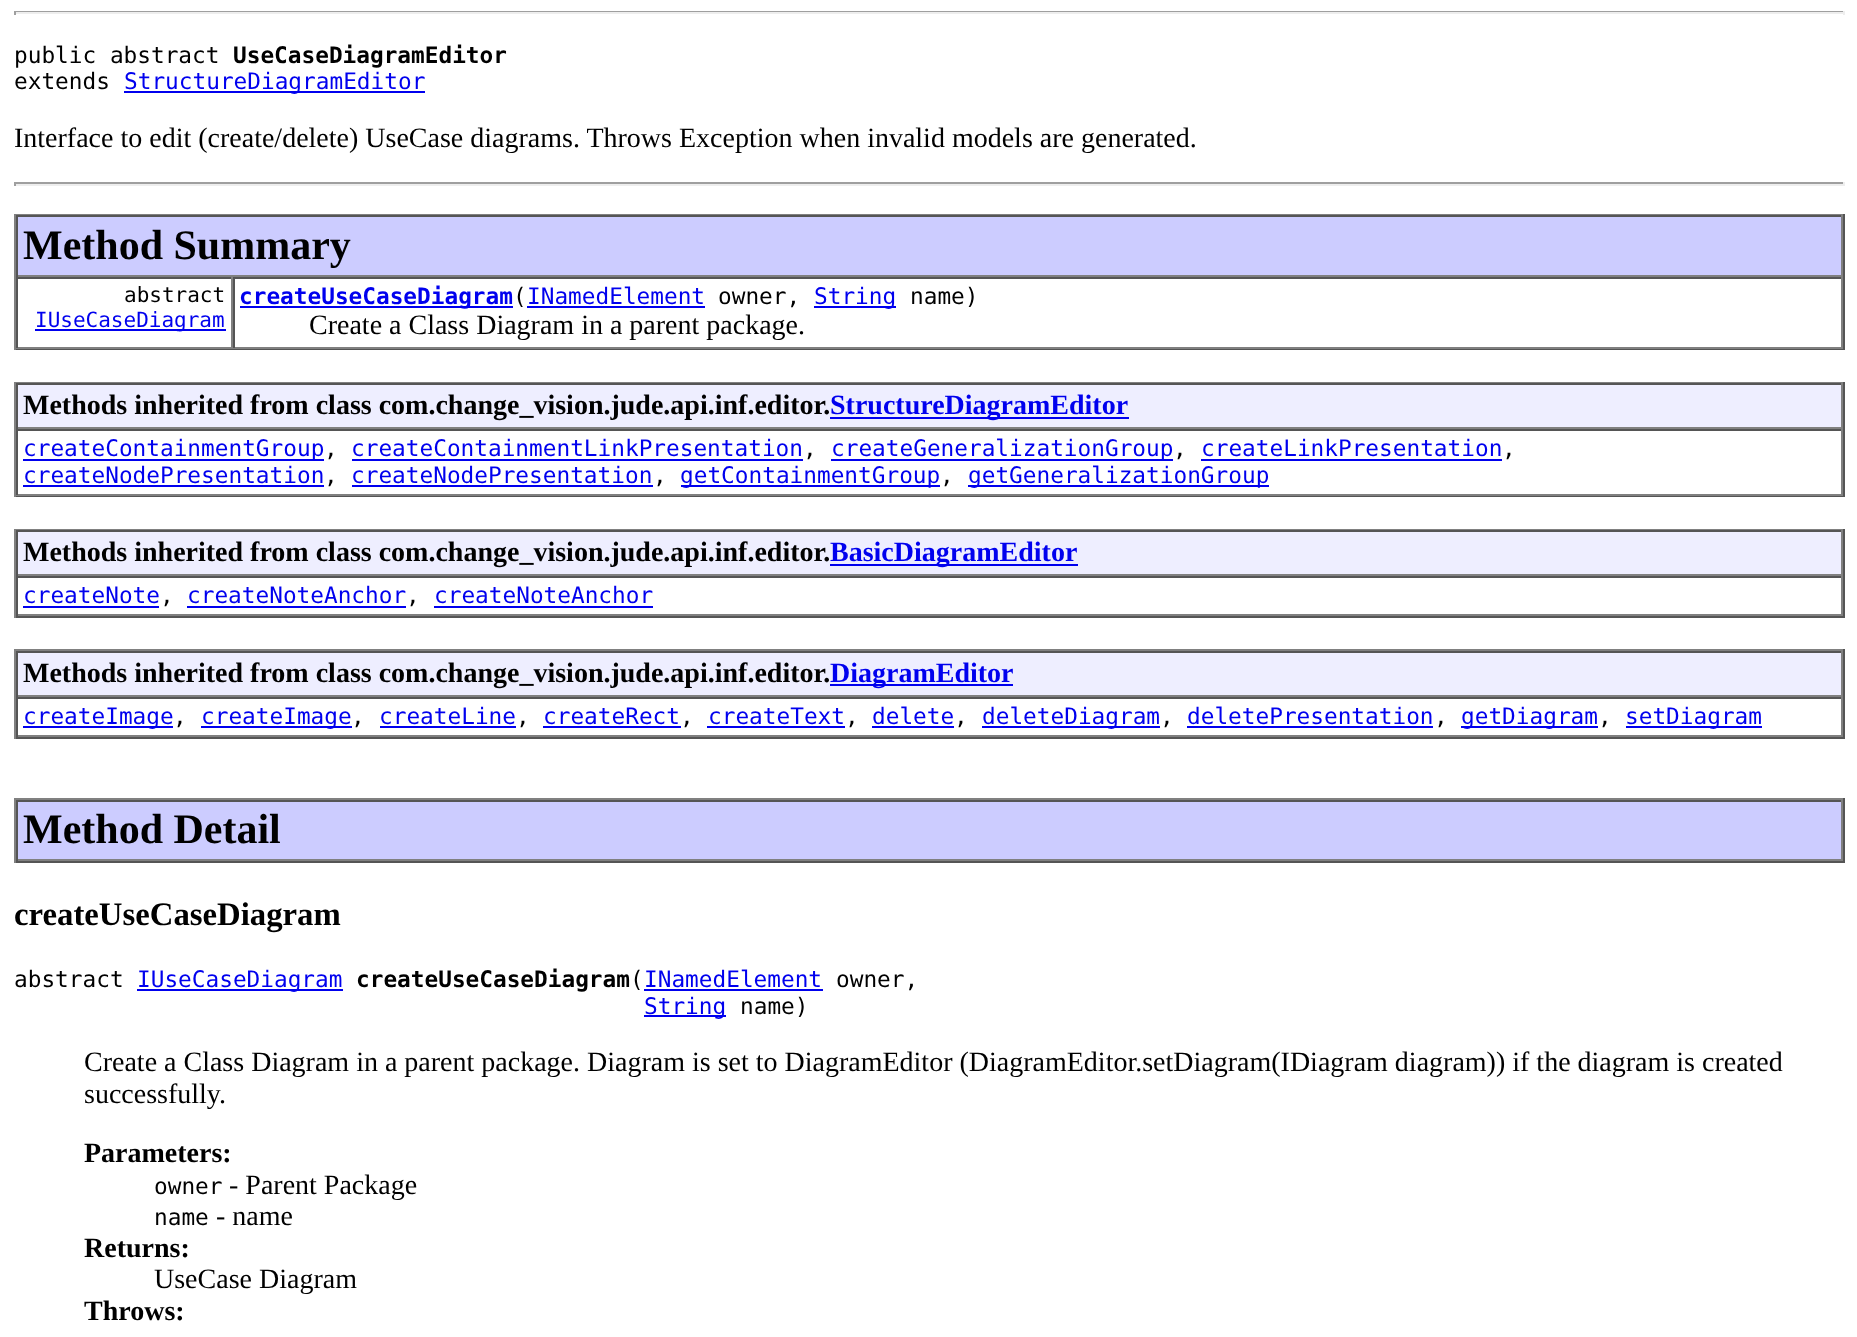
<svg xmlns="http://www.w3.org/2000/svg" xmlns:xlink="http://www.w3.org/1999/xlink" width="1857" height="1337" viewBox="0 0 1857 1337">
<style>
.cls-1{font:22.75px DejaVu Sans Mono;fill:#000000}
.cls-2{font:bold 22.75px DejaVu Sans Mono;fill:#000000}
.cls-3{font:22.75px DejaVu Sans Mono;fill:#0000ee}
.cls-4{font:28px Liberation Serif;fill:#000000}
.cls-5{font:bold 42px Liberation Serif;fill:#000000}
.cls-6{font:21px DejaVu Sans Mono;fill:#000000}
.cls-7{font:21px DejaVu Sans Mono;fill:#0000ee}
.cls-8{font:bold 22.75px DejaVu Sans Mono;fill:#0000ee}
.cls-9{font:bold 28px Liberation Serif;fill:#000000}
.cls-10{font:bold 28px Liberation Serif;fill:#0000ee}
.cls-11{font:bold 32.75px Liberation Serif;fill:#000000}
</style>
<rect width="100%" height="100%" fill="#ffffff"/>
<rect fill="#9f9f9f" x="14" y="11" width="1831" height="1"/>
<rect fill="#eeeeee" x="1843" y="11" width="2" height="4"/>
<rect fill="#eeeeee" x="14" y="12" width="1831" height="2"/>
<rect fill="#9f9f9f" x="14" y="11" width="2" height="4"/>
<rect fill="#0000ee" x="124" y="91" width="301" height="2"/>
<rect fill="#9f9f9f" x="14" y="182" width="1831" height="2"/>
<rect fill="#eeeeee" x="1843" y="182" width="2" height="4"/>
<rect fill="#eeeeee" x="14" y="184" width="1831" height="2"/>
<rect fill="#9f9f9f" x="14" y="182" width="2" height="4"/>
<rect fill="#808080" x="14" y="214" width="1831" height="1"/>
<rect fill="#555555" x="1843" y="214" width="2" height="136"/>
<rect fill="#555555" x="14" y="348" width="1831" height="2"/>
<rect fill="#808080" x="14" y="214" width="2" height="136"/>
<rect fill="#ccccff" x="18" y="217" width="1823" height="58"/>
<rect fill="#555555" x="16" y="215" width="1827" height="2"/>
<rect fill="#808080" x="1841" y="215" width="2" height="62"/>
<rect fill="#808080" x="16" y="275" width="1827" height="2"/>
<rect fill="#555555" x="16" y="215" width="2" height="62"/>
<rect fill="#555555" x="16" y="277" width="1827" height="2"/>
<rect fill="#808080" x="231" y="277" width="2" height="71"/>
<rect fill="#808080" x="16" y="347" width="217" height="2"/>
<rect fill="#555555" x="16" y="277" width="2" height="71"/>
<rect fill="#0000ee" x="35" y="329" width="191" height="2"/>
<rect fill="#808080" x="1841" y="277" width="2" height="71"/>
<rect fill="#808080" x="233" y="347" width="1610" height="2"/>
<rect fill="#555555" x="233" y="277" width="2" height="71"/>
<rect fill="#0000ee" x="240" y="306" width="273" height="2"/>
<rect fill="#0000ee" x="527" y="306" width="178" height="2"/>
<rect fill="#0000ee" x="814" y="306" width="82" height="2"/>
<rect fill="#808080" x="14" y="382" width="1831" height="1"/>
<rect fill="#555555" x="1843" y="382" width="2" height="115"/>
<rect fill="#555555" x="14" y="495" width="1831" height="2"/>
<rect fill="#808080" x="14" y="382" width="2" height="115"/>
<rect fill="#eeeeff" x="18" y="385" width="1823" height="42"/>
<rect fill="#555555" x="16" y="383" width="1827" height="2"/>
<rect fill="#808080" x="1841" y="383" width="2" height="46"/>
<rect fill="#808080" x="16" y="427" width="1827" height="2"/>
<rect fill="#555555" x="16" y="383" width="2" height="46"/>
<rect fill="#0000ee" x="830" y="417" width="299" height="2"/>
<rect fill="#555555" x="16" y="429" width="1827" height="2"/>
<rect fill="#808080" x="1841" y="429" width="2" height="66"/>
<rect fill="#808080" x="16" y="494" width="1827" height="2"/>
<rect fill="#555555" x="16" y="429" width="2" height="66"/>
<rect fill="#0000ee" x="23" y="459" width="301" height="2"/>
<rect fill="#0000ee" x="352" y="459" width="451" height="2"/>
<rect fill="#0000ee" x="831" y="459" width="342" height="2"/>
<rect fill="#0000ee" x="1201" y="459" width="301" height="2"/>
<rect fill="#0000ee" x="23" y="485" width="301" height="2"/>
<rect fill="#0000ee" x="352" y="485" width="301" height="2"/>
<rect fill="#0000ee" x="681" y="485" width="259" height="2"/>
<rect fill="#0000ee" x="968" y="485" width="301" height="2"/>
<rect fill="#808080" x="14" y="529" width="1831" height="1"/>
<rect fill="#555555" x="1843" y="529" width="2" height="89"/>
<rect fill="#555555" x="14" y="616" width="1831" height="2"/>
<rect fill="#808080" x="14" y="529" width="2" height="89"/>
<rect fill="#eeeeff" x="18" y="532" width="1823" height="42"/>
<rect fill="#555555" x="16" y="530" width="1827" height="2"/>
<rect fill="#808080" x="1841" y="530" width="2" height="46"/>
<rect fill="#808080" x="16" y="574" width="1827" height="2"/>
<rect fill="#555555" x="16" y="530" width="2" height="46"/>
<rect fill="#0000ee" x="830" y="564" width="248" height="2"/>
<rect fill="#555555" x="16" y="576" width="1827" height="2"/>
<rect fill="#808080" x="1841" y="576" width="2" height="40"/>
<rect fill="#808080" x="16" y="614" width="1827" height="2"/>
<rect fill="#555555" x="16" y="576" width="2" height="40"/>
<rect fill="#0000ee" x="23" y="606" width="136" height="2"/>
<rect fill="#0000ee" x="187" y="606" width="219" height="2"/>
<rect fill="#0000ee" x="434" y="606" width="219" height="2"/>
<rect fill="#808080" x="14" y="649" width="1831" height="2"/>
<rect fill="#555555" x="1843" y="649" width="2" height="90"/>
<rect fill="#555555" x="14" y="737" width="1831" height="2"/>
<rect fill="#808080" x="14" y="649" width="2" height="90"/>
<rect fill="#eeeeff" x="18" y="653" width="1823" height="42"/>
<rect fill="#555555" x="16" y="651" width="1827" height="2"/>
<rect fill="#808080" x="1841" y="651" width="2" height="46"/>
<rect fill="#808080" x="16" y="695" width="1827" height="2"/>
<rect fill="#555555" x="16" y="651" width="2" height="46"/>
<rect fill="#0000ee" x="830" y="684" width="183" height="2"/>
<rect fill="#555555" x="16" y="697" width="1827" height="2"/>
<rect fill="#808080" x="1841" y="697" width="2" height="40"/>
<rect fill="#808080" x="16" y="735" width="1827" height="2"/>
<rect fill="#555555" x="16" y="697" width="2" height="40"/>
<rect fill="#0000ee" x="23" y="726" width="150" height="2"/>
<rect fill="#0000ee" x="201" y="726" width="151" height="2"/>
<rect fill="#0000ee" x="380" y="726" width="136" height="2"/>
<rect fill="#0000ee" x="543" y="726" width="138" height="2"/>
<rect fill="#0000ee" x="707" y="726" width="138" height="2"/>
<rect fill="#0000ee" x="872" y="726" width="82" height="2"/>
<rect fill="#0000ee" x="982" y="726" width="178" height="2"/>
<rect fill="#0000ee" x="1187" y="726" width="246" height="2"/>
<rect fill="#0000ee" x="1461" y="726" width="137" height="2"/>
<rect fill="#0000ee" x="1626" y="726" width="136" height="2"/>
<rect fill="#808080" x="14" y="798" width="1831" height="2"/>
<rect fill="#555555" x="1843" y="798" width="2" height="65"/>
<rect fill="#555555" x="14" y="861" width="1831" height="2"/>
<rect fill="#808080" x="14" y="798" width="2" height="65"/>
<rect fill="#ccccff" x="18" y="802" width="1823" height="57"/>
<rect fill="#555555" x="16" y="800" width="1827" height="2"/>
<rect fill="#808080" x="1841" y="800" width="2" height="61"/>
<rect fill="#808080" x="16" y="859" width="1827" height="2"/>
<rect fill="#555555" x="16" y="800" width="2" height="61"/>
<rect fill="#0000ee" x="137" y="989" width="206" height="2"/>
<rect fill="#0000ee" x="644" y="989" width="179" height="2"/>
<rect fill="#0000ee" x="644" y="1015" width="82" height="2"/>
<text class="cls-1" x="14" y="63">public abstract</text>
<text class="cls-2" x="233" y="63">UseCaseDiagramEditor</text>
<text class="cls-1" x="14" y="89">extends</text>
<text class="cls-3" x="124" y="89">StructureDiagramEditor</text>
<text class="cls-4" x="14" y="147">Interface to edit (create/delete) UseCase diagrams. Throws Exception when invalid models are generated.</text>
<text class="cls-5" x="23" y="259">Method Summary</text>
<text class="cls-6" x="124" y="302">abstract</text>
<text class="cls-7" x="35" y="327">IUseCaseDiagram</text>
<text class="cls-8" x="239" y="304">createUseCaseDiagram</text>
<text class="cls-1" x="513" y="304">(</text>
<text class="cls-3" x="527" y="304">INamedElement</text>
<text class="cls-1" x="718" y="304">owner,</text>
<text class="cls-3" x="814" y="304">String</text>
<text class="cls-1" x="910" y="304">name)</text>
<text class="cls-4" x="309" y="334">Create a Class Diagram in a parent package.</text>
<text class="cls-9" x="23" y="414">Methods inherited from class com.change_vision.jude.api.inf.editor.</text>
<text class="cls-10" x="830" y="414">StructureDiagramEditor</text>
<text class="cls-3" x="23" y="456">createContainmentGroup</text>
<text class="cls-1" x="324" y="456">,</text>
<text class="cls-3" x="351" y="456">createContainmentLinkPresentation</text>
<text class="cls-1" x="803" y="456">,</text>
<text class="cls-3" x="831" y="456">createGeneralizationGroup</text>
<text class="cls-1" x="1173" y="456">,</text>
<text class="cls-3" x="1201" y="456">createLinkPresentation</text>
<text class="cls-1" x="1502" y="456">,</text>
<text class="cls-3" x="23" y="483">createNodePresentation</text>
<text class="cls-1" x="324" y="483">,</text>
<text class="cls-3" x="351" y="483">createNodePresentation</text>
<text class="cls-1" x="653" y="483">,</text>
<text class="cls-3" x="680" y="483">getContainmentGroup</text>
<text class="cls-1" x="940" y="483">,</text>
<text class="cls-3" x="968" y="483">getGeneralizationGroup</text>
<text class="cls-9" x="23" y="561">Methods inherited from class com.change_vision.jude.api.inf.editor.</text>
<text class="cls-10" x="830" y="561">BasicDiagramEditor</text>
<text class="cls-3" x="23" y="603">createNote</text>
<text class="cls-1" x="160" y="603">,</text>
<text class="cls-3" x="187" y="603">createNoteAnchor</text>
<text class="cls-1" x="406" y="603">,</text>
<text class="cls-3" x="434" y="603">createNoteAnchor</text>
<text class="cls-9" x="23" y="682">Methods inherited from class com.change_vision.jude.api.inf.editor.</text>
<text class="cls-10" x="830" y="682">DiagramEditor</text>
<text class="cls-3" x="23" y="724">createImage</text>
<text class="cls-1" x="173" y="724">,</text>
<text class="cls-3" x="201" y="724">createImage</text>
<text class="cls-1" x="351" y="724">,</text>
<text class="cls-3" x="379" y="724">createLine</text>
<text class="cls-1" x="516" y="724">,</text>
<text class="cls-3" x="543" y="724">createRect</text>
<text class="cls-1" x="680" y="724">,</text>
<text class="cls-3" x="708" y="724">createText</text>
<text class="cls-1" x="845" y="724">,</text>
<text class="cls-3" x="872" y="724">delete</text>
<text class="cls-1" x="954" y="724">,</text>
<text class="cls-3" x="982" y="724">deleteDiagram</text>
<text class="cls-1" x="1160" y="724">,</text>
<text class="cls-3" x="1187" y="724">deletePresentation</text>
<text class="cls-1" x="1434" y="724">,</text>
<text class="cls-3" x="1461" y="724">getDiagram</text>
<text class="cls-1" x="1598" y="724">,</text>
<text class="cls-3" x="1625" y="724">setDiagram</text>
<text class="cls-5" x="23" y="843">Method Detail</text>
<text class="cls-11" x="14" y="925">createUseCaseDiagram</text>
<text class="cls-1" x="14" y="987">abstract</text>
<text class="cls-3" x="137" y="987">IUseCaseDiagram</text>
<text class="cls-2" x="356" y="987">createUseCaseDiagram</text>
<text class="cls-1" x="630" y="987">(</text>
<text class="cls-3" x="644" y="987">INamedElement</text>
<text class="cls-1" x="836" y="987">owner,</text>
<text class="cls-3" x="644" y="1014">String</text>
<text class="cls-1" x="740" y="1014">name)</text>
<text class="cls-4"><tspan x="84" y="1071">Create a Class Diagram in a parent package. Diagram is set to DiagramEditor (DiagramEditor.setDiagram(IDiagram diagram)) if the diagram is created</tspan><tspan x="84" y="1103">successfully.</tspan></text>
<text class="cls-9" x="84" y="1162">Parameters:</text>
<text class="cls-1" x="154" y="1194">owner</text>
<text class="cls-4" x="229" y="1194">- Parent Package</text>
<text class="cls-1" x="154" y="1225">name</text>
<text class="cls-4" x="216" y="1225">- name</text>
<text class="cls-9" x="84" y="1257">Returns:</text>
<text class="cls-4" x="154" y="1288">UseCase Diagram</text>
<text class="cls-9" x="84" y="1320">Throws:</text>
</svg>
